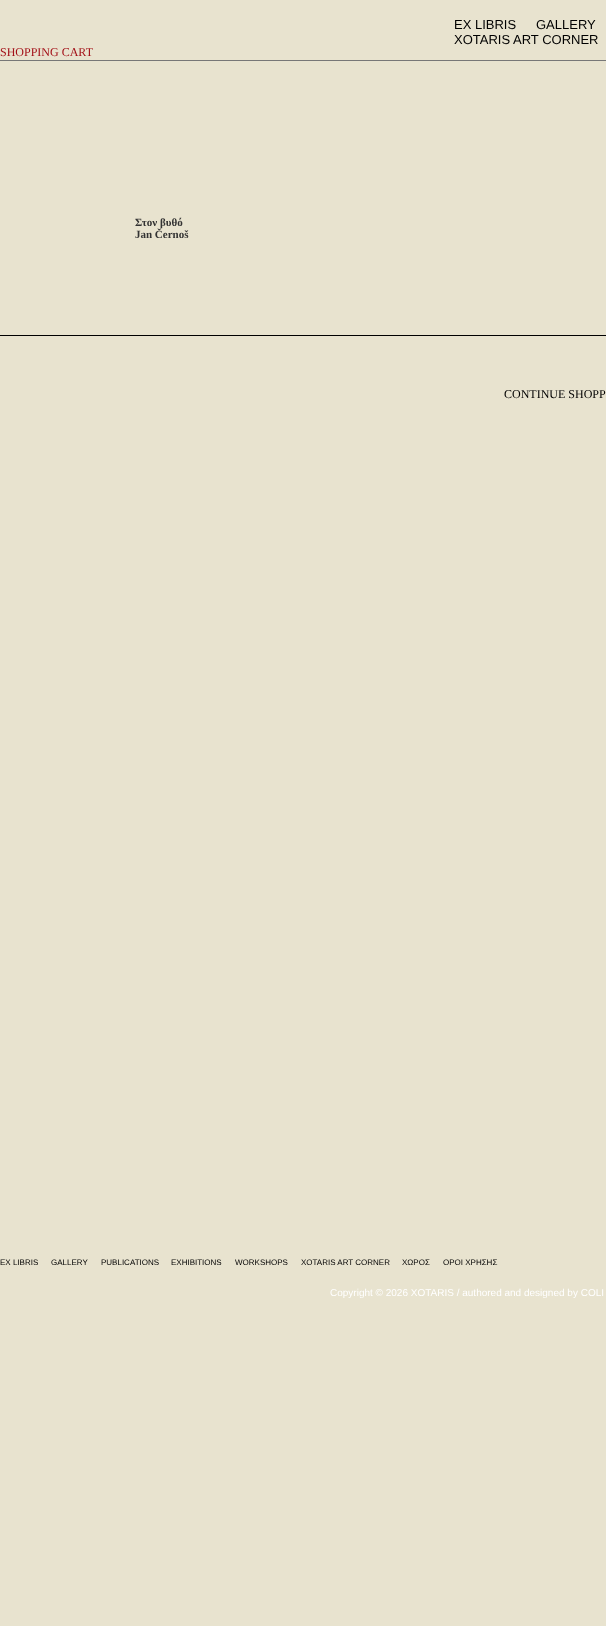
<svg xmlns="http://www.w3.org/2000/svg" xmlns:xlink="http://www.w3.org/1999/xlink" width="606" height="1626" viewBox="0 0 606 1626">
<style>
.cls-1{font:13px Liberation Sans;fill:#000000}
.cls-2{font:12px Liberation Serif;fill:#a31018}
.cls-3{font:bold 11px Liberation Serif;fill:#333333}
.cls-4{font:12px Liberation Serif;fill:#000000}
.cls-5{font:8px Liberation Sans;fill:#000000}
.cls-6{font:10px Liberation Sans;fill:#ffffff}
</style>
<rect width="100%" height="100%" fill="#e8e3cf"/>
<rect fill="#777777" x="0" y="60" width="606" height="1"/>
<rect fill="#000000" x="0" y="335" width="606" height="1"/>
<text class="cls-1" x="454" y="29">EX LIBRIS</text>
<text class="cls-1" x="536" y="29">GALLERY</text>
<text class="cls-1" x="454" y="44">XOTARIS ART CORNER</text>
<text class="cls-2" x="0" y="56">SHOPPING CART</text>
<text class="cls-3"><tspan x="135" y="226">Στον βυθό</tspan><tspan x="135" y="238">Jan Černoš</tspan></text>
<text class="cls-4" x="504" y="398">CONTINUE SHOPP</text>
<text class="cls-5" x="0" y="1265">EX LIBRIS</text>
<text class="cls-5" x="51" y="1265">GALLERY</text>
<text class="cls-5" x="101" y="1265">PUBLICATIONS</text>
<text class="cls-5" x="171" y="1265">EXHIBITIONS</text>
<text class="cls-5" x="235" y="1265">WORKSHOPS</text>
<text class="cls-5" x="301" y="1265">XOTARIS ART CORNER</text>
<text class="cls-5" x="402" y="1265">ΧΩΡΟΣ</text>
<text class="cls-5" x="443" y="1265">ΟΡΟΙ ΧΡΗΣΗΣ</text>
<text class="cls-6" x="330" y="1296">Copyright © 2026 XOTARIS / authored and designed by COLI</text>
</svg>
